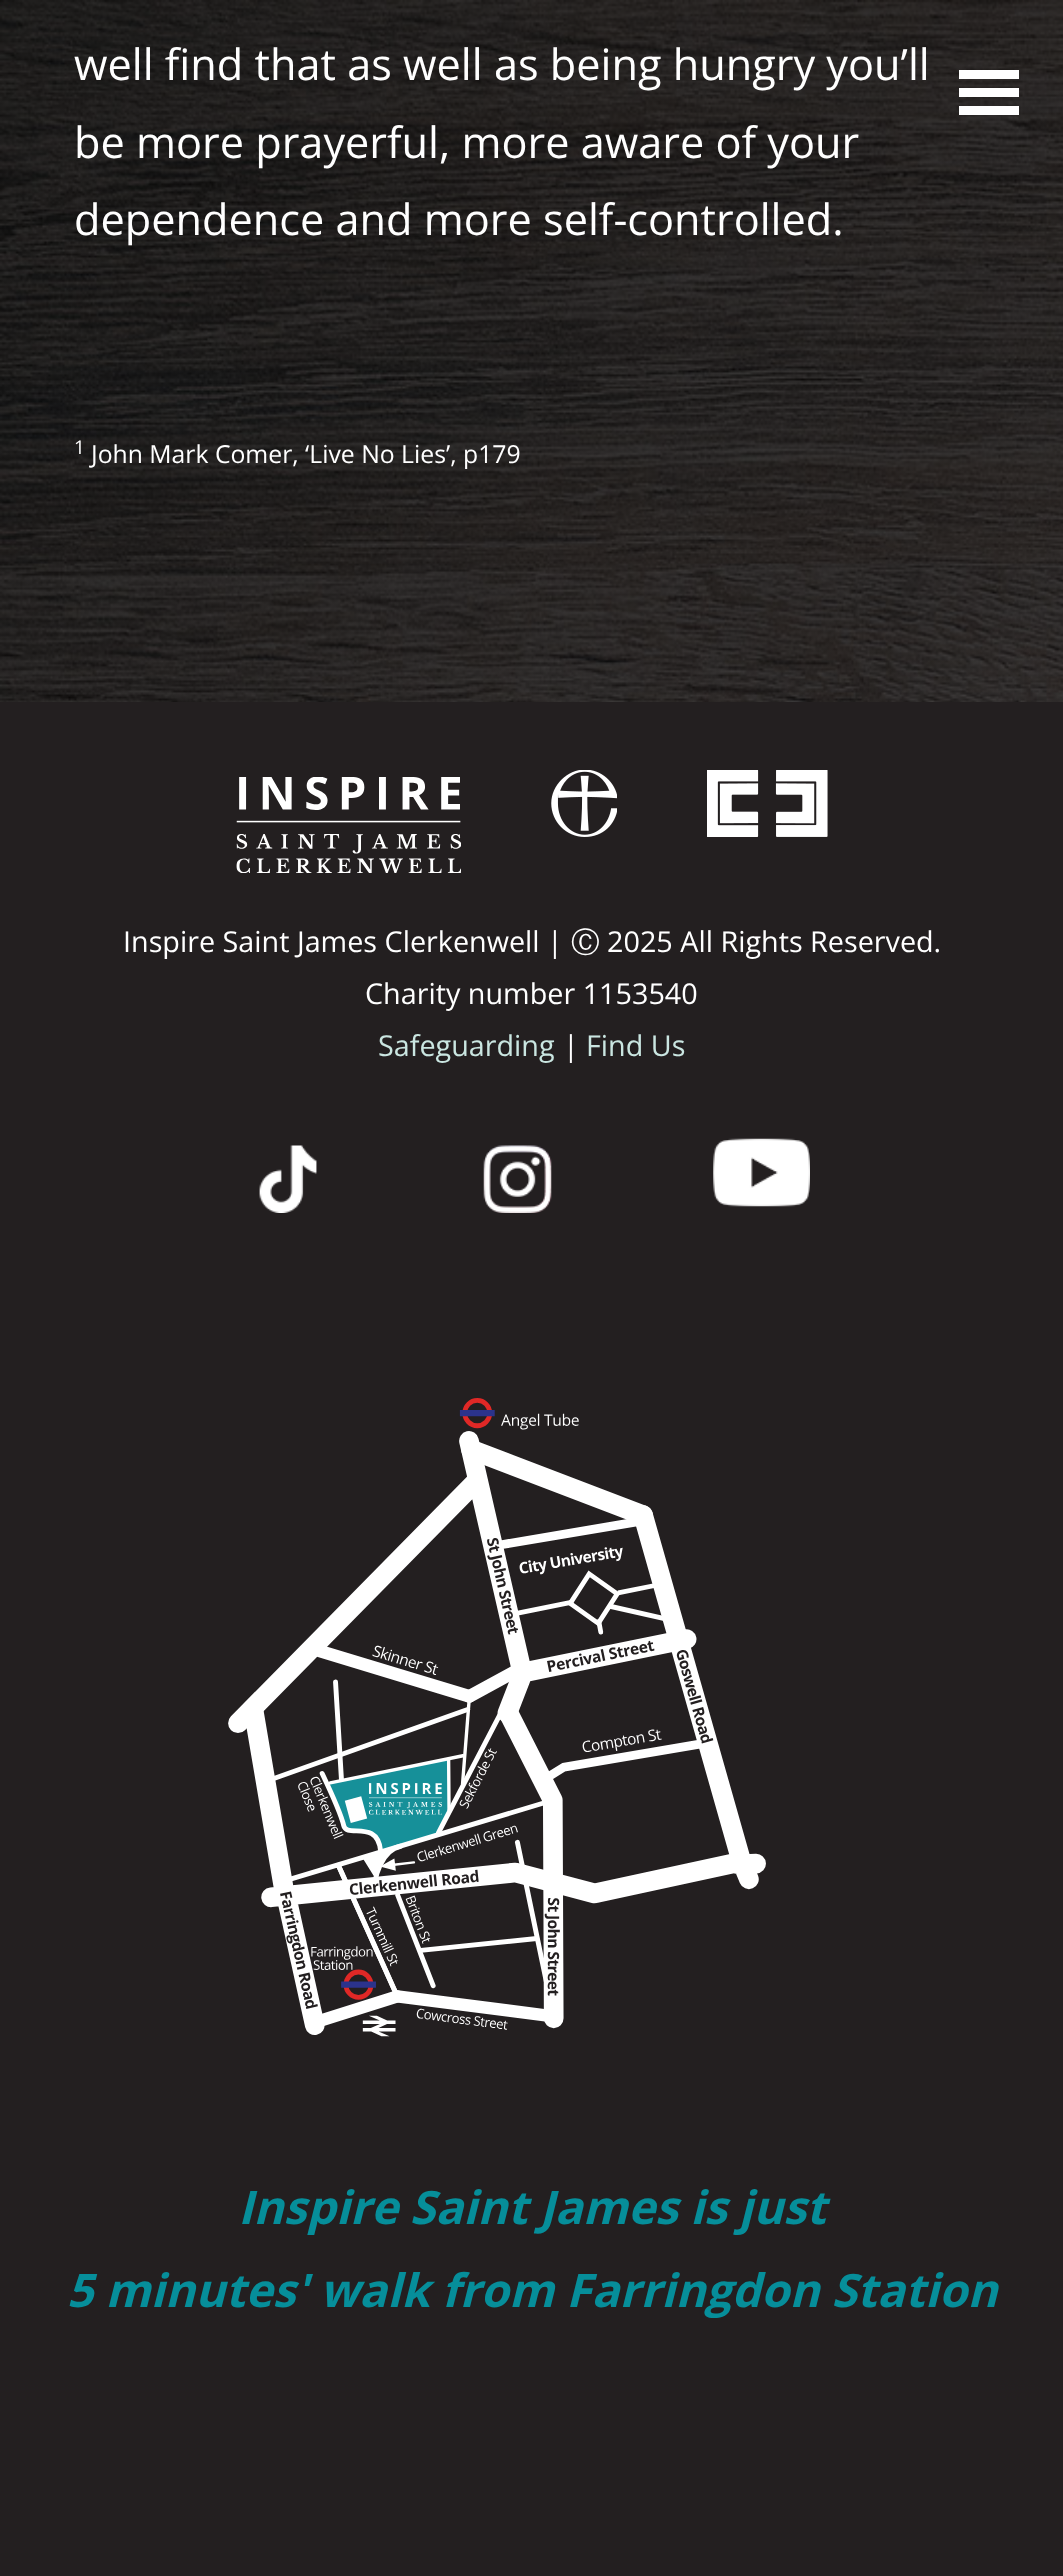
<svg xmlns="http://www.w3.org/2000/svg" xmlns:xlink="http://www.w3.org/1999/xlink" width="1063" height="2576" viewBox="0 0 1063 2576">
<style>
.cls-1{font:43.25px Open Sans;fill:#ffffff}
.cls-2{font:19px Open Sans;fill:#ffffff}
.cls-3{font:24.75px Open Sans;fill:#ffffff}
.cls-4{font:28.75px Open Sans;fill:#ffffff}
.cls-5{font:500 28.75px WenQuanYi Zen Hei;fill:#ffffff}
.cls-6{font:28.75px Open Sans;fill:#cae6e1}
.cls-7{font:italic bold 46.1px Open Sans;fill:#068e9a}
</style>
<rect width="100%" height="100%" fill="#ffffff"/>
<image xlink:href="image0.png" x="0" y="0" width="1063" height="702"/>
<rect fill="#ffffff" x="959" y="70" width="60" height="9"/>
<rect fill="#ffffff" x="959" y="88" width="60" height="9"/>
<rect fill="#ffffff" x="959" y="106" width="60" height="9"/>
<rect fill="#231f20" x="0" y="702" width="1063" height="1874"/>
<image xlink:href="image1.png" x="236" y="777" width="225" height="96"/>
<image xlink:href="image2.png" x="551" y="770" width="66" height="67"/>
<image xlink:href="image3.png" x="707" y="770" width="121" height="67"/>
<image xlink:href="image4.png" x="259" y="1145" width="58" height="68"/>
<image xlink:href="image5.png" x="483" y="1145" width="69" height="68"/>
<image xlink:href="image6.png" x="713" y="1138" width="97" height="69"/>
<image xlink:href="image7.png" x="228" y="1398" width="538" height="639"/>
<text class="cls-1"><tspan x="74" y="80">well find that as well as being hungry you’ll</tspan><tspan x="74" y="158">be more prayerful, more aware of your</tspan><tspan x="74" y="235">dependence and more self-controlled.</tspan></text>
<text class="cls-2" x="74" y="454">1</text>
<text class="cls-3" x="91" y="463">John Mark Comer, ‘Live No Lies’, p179</text>
<text class="cls-4" x="123" y="952">Inspire Saint James Clerkenwell |</text>
<text class="cls-5" x="571" y="952">Ⓒ</text>
<text class="cls-4" x="607" y="952">2025 All Rights Reserved.</text>
<text class="cls-4" x="365" y="1004">Charity number 1153540</text>
<text class="cls-6" x="378" y="1056">Safeguarding</text>
<text class="cls-4" x="563" y="1056">|</text>
<text class="cls-6" x="586" y="1056">Find Us</text>
<text class="cls-7" x="238" y="2224">Inspire Saint James is just</text>
<text class="cls-7" x="67" y="2307">5 minutes' walk from Farringdon Station</text>
</svg>
